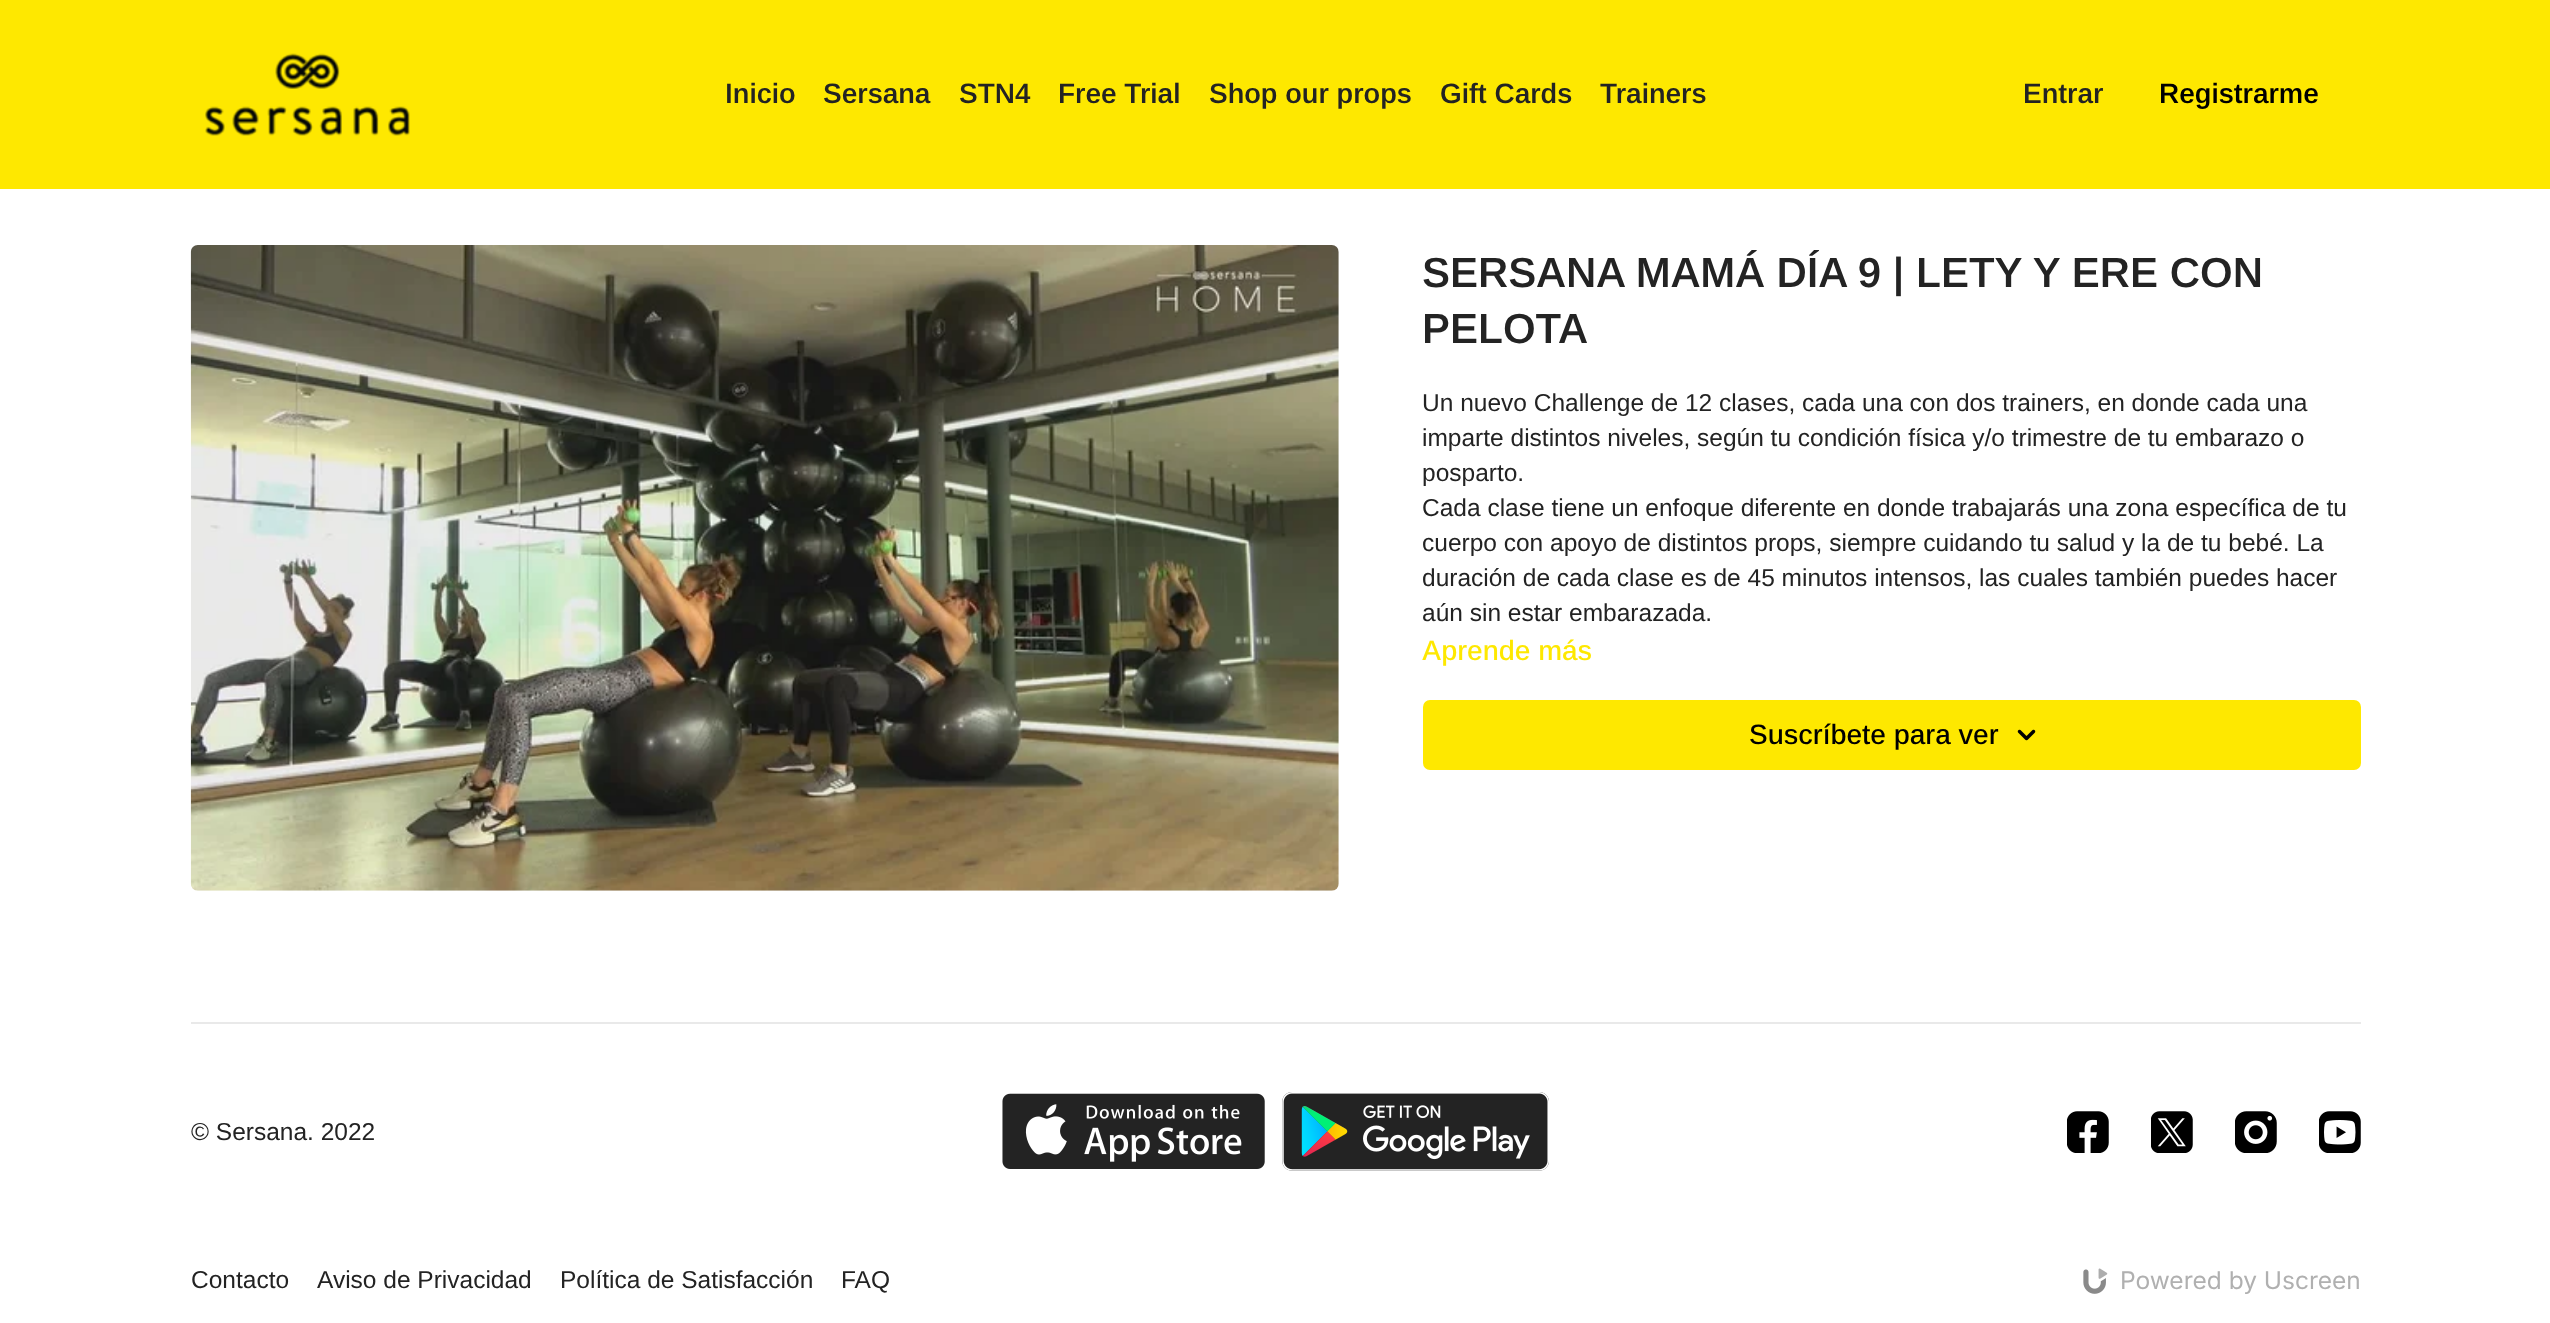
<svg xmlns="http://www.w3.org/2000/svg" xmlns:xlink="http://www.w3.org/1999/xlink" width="2550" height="1323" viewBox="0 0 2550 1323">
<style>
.cls-1{font:600 28px Arimo;fill:#232323}
.cls-2{font:600 28px Arimo;fill:#000000}
.cls-3{font:600 42px Arimo;fill:#232323}
.cls-4{font:24.5px Arimo;fill:#232323}
.cls-5{font:500 28px Arimo;fill:#fee800}
.cls-6{font:500 28px Arimo;fill:#000000}
.cls-7{font:24.5px Inter;fill:#b0b0b0}
</style>
<rect width="100%" height="100%" fill="#ffffff"/>
<rect fill="#fee800" x="0" y="0" width="2550" height="189"/>
<image xlink:href="image0.png" x="205" y="53" width="205" height="83"/>
<image xlink:href="image1.png" x="190" y="245" width="1149" height="646"/>
<rect fill="#fee800" x="1423" y="700" width="938" height="70" rx="7"/>
<image xlink:href="image2.png" x="2017" y="729" width="19" height="12"/>
<rect fill="#e9e9e9" x="191" y="1022" width="2170" height="2"/>
<image xlink:href="image3.png" x="1002" y="1093" width="263" height="76"/>
<image xlink:href="image4.png" x="1282" y="1092" width="267" height="79"/>
<image xlink:href="image5.png" x="2067" y="1111" width="42" height="42"/>
<image xlink:href="image6.png" x="2151" y="1111" width="42" height="42"/>
<image xlink:href="image7.png" x="2235" y="1111" width="42" height="42"/>
<image xlink:href="image8.png" x="2319" y="1111" width="42" height="42"/>
<image xlink:href="image9.png" x="2083" y="1268" width="25" height="26"/>
<text class="cls-1" x="725" y="103">Inicio</text>
<text class="cls-1" x="823" y="103">Sersana</text>
<text class="cls-1" x="959" y="103">STN4</text>
<text class="cls-1" x="1058" y="103">Free Trial</text>
<text class="cls-1" x="1209" y="103">Shop our props</text>
<text class="cls-1" x="1440" y="103">Gift Cards</text>
<text class="cls-1" x="1600" y="103">Trainers</text>
<text class="cls-1" x="2023" y="103">Entrar</text>
<text class="cls-2" x="2159" y="103">Registrarme</text>
<text class="cls-3"><tspan x="1422" y="287">SERSANA MAMÁ DÍA 9 | LETY Y ERE CON</tspan><tspan x="1422" y="343">PELOTA</tspan></text>
<text class="cls-4"><tspan x="1422" y="411">Un nuevo Challenge de 12 clases, cada una con dos trainers, en donde cada una</tspan><tspan x="1422" y="446">imparte distintos niveles, según tu condición física y/o trimestre de tu embarazo o</tspan><tspan x="1422" y="481">posparto.</tspan><tspan x="1422" y="516">Cada clase tiene un enfoque diferente en donde trabajarás una zona específica de tu</tspan><tspan x="1422" y="551">cuerpo con apoyo de distintos props, siempre cuidando tu salud y la de tu bebé. La</tspan><tspan x="1422" y="586">duración de cada clase es de 45 minutos intensos, las cuales también puedes hacer</tspan><tspan x="1422" y="621">aún sin estar embarazada.</tspan></text>
<text class="cls-5" x="1422" y="660">Aprende más</text>
<text class="cls-6" x="1749" y="744">Suscríbete para ver</text>
<text class="cls-4" x="191" y="1140">© Sersana. 2022</text>
<text class="cls-4" x="191" y="1288">Contacto</text>
<text class="cls-4" x="317" y="1288">Aviso de Privacidad</text>
<text class="cls-4" x="560" y="1288">Política de Satisfacción</text>
<text class="cls-4" x="841" y="1288">FAQ</text>
<text class="cls-7" x="2120" y="1289">Powered by Uscreen</text>
</svg>
